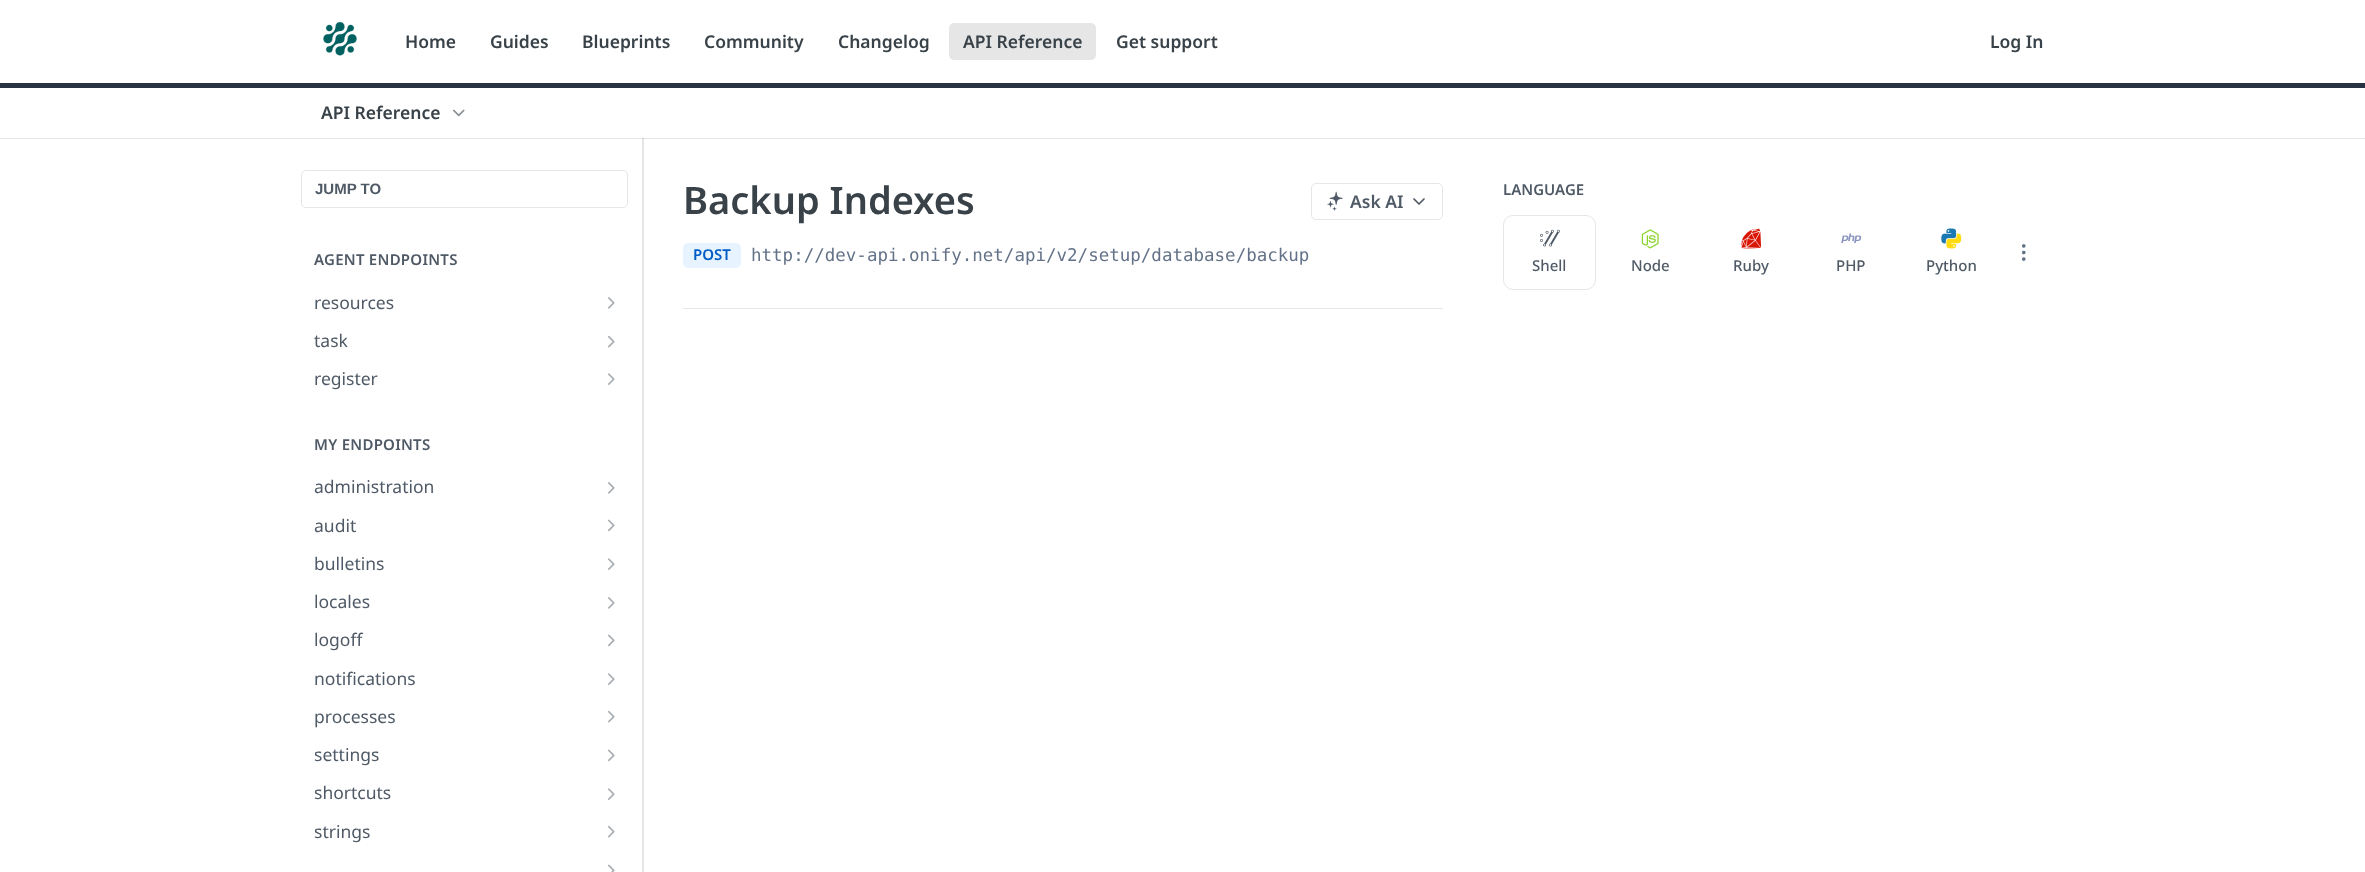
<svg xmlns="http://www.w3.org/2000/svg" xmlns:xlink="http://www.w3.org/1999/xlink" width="2365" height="872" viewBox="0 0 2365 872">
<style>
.cls-1{font:600 17.5px Noto Sans;fill:#384248}
.cls-2{font:bold 15px Liberation Sans;fill:#4f5a66}
.cls-3{font:600 15px Noto Sans;letter-spacing:0.25px;fill:#4f5a66}
.cls-4{font:17.5px Noto Sans;fill:#4f5a66}
.cls-5{font:600 38px Noto Sans;fill:#384248}
.cls-6{font:600 17.5px Noto Sans;fill:#4f5a66}
.cls-7{font:600 15px Noto Sans;fill:#005dc5}
.cls-8{font:17.5px DejaVu Sans Mono;fill:#637288}
.cls-9{font:600 15px Noto Sans;fill:#4f5a66}
.cls-10{font:500 15px Noto Sans;fill:#4f5a66}
</style>
<rect width="100%" height="100%" fill="#ffffff"/>
<rect fill="#e6e6e6" x="0" y="138" width="2365" height="1"/>
<rect fill="#293243" x="0" y="83" width="2365" height="5"/>
<image xlink:href="image0.png" x="323" y="21" width="34" height="35"/>
<rect fill="#e6e6e6" x="949" y="23" width="147" height="37" rx="5"/>
<image xlink:href="image1.png" x="453" y="109" width="12" height="8"/>
<rect fill="#e6e6e6" x="642" y="138" width="2" height="734"/>
<rect fill="#cfcfcf" x="642" y="138" width="2" height="1"/>
<rect fill="none" stroke="#e6e6e6" x="301.5" y="170.5" width="326" height="37" rx="4.5"/>
<image xlink:href="image2.png" x="608" y="297" width="7" height="12"/>
<image xlink:href="image3.png" x="608" y="335" width="7" height="13"/>
<image xlink:href="image4.png" x="608" y="373" width="7" height="12"/>
<image xlink:href="image2.png" x="608" y="482" width="7" height="12"/>
<image xlink:href="image5.png" x="608" y="519" width="7" height="13"/>
<image xlink:href="image4.png" x="608" y="558" width="7" height="12"/>
<image xlink:href="image2.png" x="608" y="597" width="7" height="12"/>
<image xlink:href="image5.png" x="608" y="634" width="7" height="13"/>
<image xlink:href="image4.png" x="608" y="673" width="7" height="12"/>
<image xlink:href="image3.png" x="608" y="710" width="7" height="13"/>
<image xlink:href="image5.png" x="608" y="749" width="7" height="13"/>
<image xlink:href="image4.png" x="608" y="788" width="7" height="12"/>
<image xlink:href="image3.png" x="608" y="825" width="7" height="13"/>
<image xlink:href="image6.png" x="608" y="864" width="7" height="8"/>
<rect fill="#e6e6e6" x="683" y="308" width="760" height="1"/>
<rect fill="none" stroke="#e6e6e6" x="1311.5" y="183.5" width="131" height="36" rx="4.5"/>
<image xlink:href="image7.png" x="1327" y="191" width="16" height="20"/>
<path fill="none" stroke="#4f5a66" stroke-width="1.7" stroke-linecap="round" stroke-linejoin="round" d="M1414 199L1419 204L1424 199"/>
<rect fill="#e7f3ff" x="683" y="243" width="58" height="25" rx="5"/>
<image xlink:href="image8.png" x="2021" y="244" width="5" height="17"/>
<rect fill="none" stroke="#e6e6e6" x="1503.5" y="215.5" width="92" height="74" rx="9.5"/>
<image xlink:href="image9.png" x="1540" y="229" width="20" height="18"/>
<image xlink:href="image10.png" x="1641" y="229" width="18" height="20"/>
<image xlink:href="image11.png" x="1741" y="228" width="21" height="21"/>
<image xlink:href="image12.png" x="1841" y="233" width="21" height="11"/>
<image xlink:href="image13.png" x="1941" y="228" width="16" height="16"/>
<image xlink:href="image14.png" x="1946" y="233" width="16" height="16"/>
<text class="cls-1" x="405" y="48">Home</text>
<text class="cls-1" x="490" y="48">Guides</text>
<text class="cls-1" x="582" y="48">Blueprints</text>
<text class="cls-1" x="704" y="48">Community</text>
<text class="cls-1" x="838" y="48">Changelog</text>
<text class="cls-1" x="963" y="48">API Reference</text>
<text class="cls-1" x="1116" y="48">Get support</text>
<text class="cls-1" x="1990" y="48">Log In</text>
<text class="cls-1" x="321" y="119">API Reference</text>
<text class="cls-2" x="315" y="194">JUMP TO</text>
<text class="cls-3" x="314" y="265">AGENT ENDPOINTS</text>
<text class="cls-4" x="314" y="309">resources</text>
<text class="cls-4" x="314" y="347">task</text>
<text class="cls-4" x="314" y="385">register</text>
<text class="cls-3" x="314" y="450">MY ENDPOINTS</text>
<text class="cls-4" x="314" y="493">administration</text>
<text class="cls-4" x="314" y="532">audit</text>
<text class="cls-4" x="314" y="570">bulletins</text>
<text class="cls-4" x="314" y="608">locales</text>
<text class="cls-4" x="314" y="646">logoff</text>
<text class="cls-4" x="314" y="685">notifications</text>
<text class="cls-4" x="314" y="723">processes</text>
<text class="cls-4" x="314" y="761">settings</text>
<text class="cls-4" x="314" y="799">shortcuts</text>
<text class="cls-4" x="314" y="838">strings</text>
<text class="cls-5" x="683" y="214">Backup Indexes</text>
<text class="cls-6" x="1350" y="208">Ask AI</text>
<text class="cls-7" x="693" y="260">POST</text>
<text class="cls-8" x="751" y="261">http://dev-api.onify.net/api/v2/setup/database/backup</text>
<text class="cls-9" x="1503" y="195">LANGUAGE</text>
<text class="cls-10" x="1532" y="271">Shell</text>
<text class="cls-10" x="1631" y="271">Node</text>
<text class="cls-10" x="1733" y="271">Ruby</text>
<text class="cls-10" x="1836" y="271">PHP</text>
<text class="cls-10" x="1926" y="271">Python</text>
</svg>
